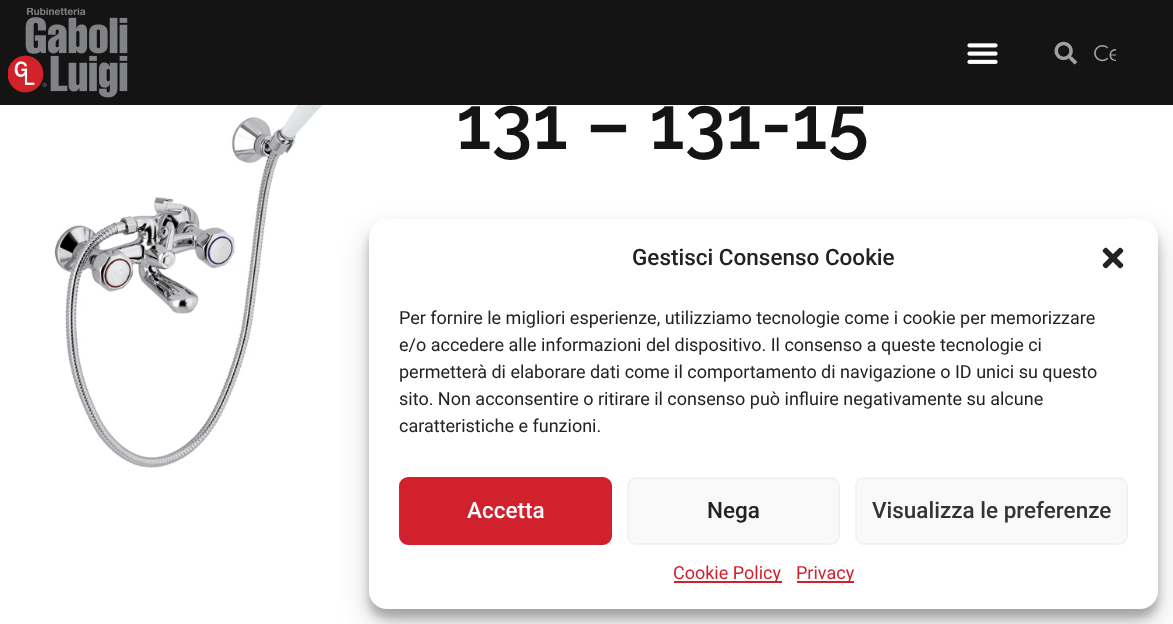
<svg xmlns="http://www.w3.org/2000/svg" xmlns:xlink="http://www.w3.org/1999/xlink" width="1173" height="624" viewBox="0 0 1173 624">
<style>
.cls-1{font:22.5px Montserrat;fill:#a1a1a1}
.cls-2{font:600 75px Raleway;fill:#141414}
.cls-3{font:500 22.5px Roboto;fill:#222222}
.cls-4{font:18px Roboto;fill:#222222}
.cls-5{font:500 22.5px Roboto;fill:#ffffff}
.cls-6{font:500 22.5px Roboto;fill:#333333}
.cls-7{font:18px Roboto;fill:#d1212d}
</style>
<defs>
<clipPath id="clip1"><rect x="1094" y="39" width="22" height="29"/></clipPath>
</defs>
<rect width="100%" height="100%" fill="#ffffff"/>
<rect fill="#141414" x="0" y="0" width="1173" height="105"/>
<image xlink:href="image0.png" x="8" y="8" width="120" height="90"/>
<image xlink:href="image1.png" x="967" y="43" width="31" height="21"/>
<image xlink:href="image2.png" x="1054" y="41" width="23" height="24"/>
<image xlink:href="image3.png" x="54" y="105" width="305" height="363"/>
<rect fill="#000000" fill-opacity="0.23" filter="blur(4.5px)" x="369" y="228" width="789" height="390" rx="18"/>
<rect fill="#000000" fill-opacity="0.19" filter="blur(15px)" x="369" y="234" width="789" height="390" rx="18"/>
<rect fill="#ffffff" x="369" y="219" width="789" height="390" rx="18"/>
<image xlink:href="image4.png" x="1102" y="247" width="22" height="22"/>
<rect fill="#d1212d" stroke="#d1212d" stroke-width="2" x="400" y="478" width="211" height="66" rx="8"/>
<rect fill="#f9f9f9" stroke="#f2f2f2" stroke-width="2" x="628" y="478" width="211" height="66" rx="8"/>
<rect fill="#f9f9f9" stroke="#f2f2f2" stroke-width="2" x="856" y="478" width="271" height="66" rx="8"/>
<rect fill="#d1212d" x="674" y="581" width="108" height="2"/>
<rect fill="#d1212d" x="797" y="581" width="57" height="2"/>
<g clip-path="url(#clip1)">
<text class="cls-1" x="1093" y="61">Ce</text>
</g>
<text class="cls-2" x="456" y="149">131 – 131-15</text>
<text class="cls-3" x="632" y="265">Gestisci Consenso Cookie</text>
<text class="cls-4"><tspan x="399" y="324">Per fornire le migliori esperienze, utilizziamo tecnologie come i cookie per memorizzare</tspan><tspan x="399" y="351">e/o accedere alle informazioni del dispositivo. Il consenso a queste tecnologie ci</tspan><tspan x="399" y="378">permetterà di elaborare dati come il comportamento di navigazione o ID unici su questo</tspan><tspan x="399" y="405">sito. Non acconsentire o ritirare il consenso può influire negativamente su alcune</tspan><tspan x="399" y="432">caratteristiche e funzioni.</tspan></text>
<text class="cls-5" x="467" y="518">Accetta</text>
<text class="cls-3" x="707" y="518">Nega</text>
<text class="cls-6" x="872" y="518">Visualizza le preferenze</text>
<text class="cls-7" x="673" y="579">Cookie Policy</text>
<text class="cls-7" x="796" y="579">Privacy</text>
</svg>
